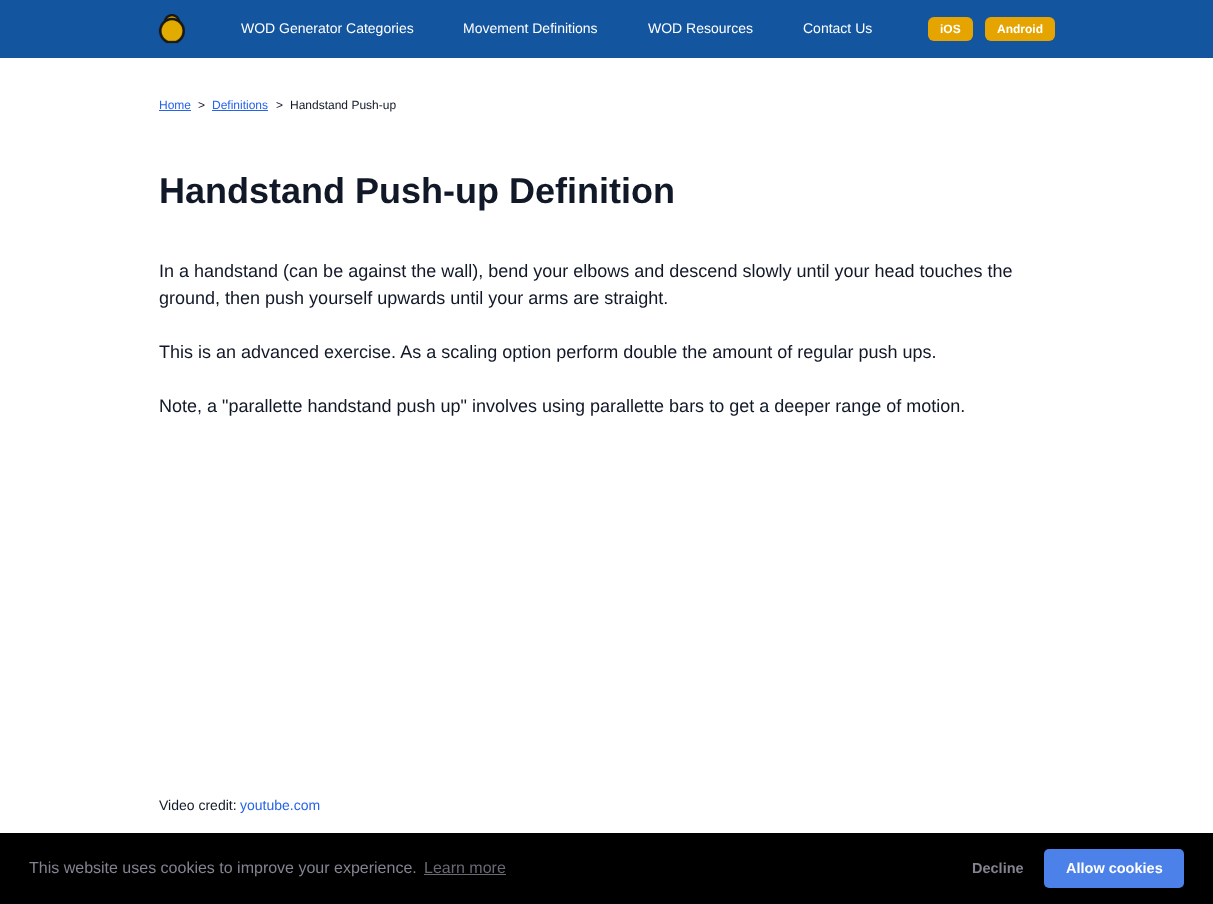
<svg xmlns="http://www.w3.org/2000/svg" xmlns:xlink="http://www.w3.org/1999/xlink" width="1213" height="904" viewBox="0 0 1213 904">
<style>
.cls-1{font:14px Liberation Sans;fill:#ffffff}
.cls-2{font:bold 12px Liberation Sans;fill:#ffffff}
.cls-3{font:12px Liberation Sans;fill:#2563eb}
.cls-4{font:12px Liberation Sans;fill:#111827}
.cls-5{font:bold 36px Liberation Sans;fill:#111827}
.cls-6{font:18px Liberation Sans;fill:#111827}
.cls-7{font:14px Liberation Sans;fill:#111827}
.cls-8{font:14px Liberation Sans;fill:#2563eb}
.cls-9{font:16px Liberation Sans;fill:#838391}
.cls-10{font:16px Liberation Sans;fill:#696974}
.cls-11{font:bold 14.5px Liberation Sans;fill:#838391}
.cls-12{font:bold 14.5px Liberation Sans;fill:#ffffff}
</style>
<rect width="100%" height="100%" fill="#ffffff"/>
<rect fill="#13559e" x="0" y="0" width="1213" height="58"/>
<image xlink:href="image0.png" x="158" y="14" width="27" height="30"/>
<rect fill="#e5a400" x="928" y="17" width="45" height="24" rx="6"/>
<rect fill="#e5a400" x="985" y="17" width="70" height="24" rx="6"/>
<rect fill="#2563eb" x="159" y="110" width="32" height="1"/>
<rect fill="#2563eb" x="212" y="110" width="56" height="1"/>
<rect fill="#000000" x="0" y="833" width="1213" height="71"/>
<rect fill="#696974" x="424" y="874" width="82" height="1"/>
<rect fill="#4b81e8" x="1044" y="849" width="140" height="39" rx="5"/>
<text class="cls-1" x="241" y="33">WOD Generator Categories</text>
<text class="cls-1" x="463" y="33">Movement Definitions</text>
<text class="cls-1" x="648" y="33">WOD Resources</text>
<text class="cls-1" x="803" y="33">Contact Us</text>
<text class="cls-2" x="940" y="33">iOS</text>
<text class="cls-2" x="997" y="33">Android</text>
<text class="cls-3" x="159" y="109">Home</text>
<text class="cls-4" x="198" y="109">&gt;</text>
<text class="cls-3" x="212" y="109">Definitions</text>
<text class="cls-4" x="276" y="109">&gt;</text>
<text class="cls-4" x="290" y="109">Handstand Push-up</text>
<text class="cls-5" x="159" y="203">Handstand Push-up Definition</text>
<text class="cls-6"><tspan x="159" y="277">In a handstand (can be against the wall), bend your elbows and descend slowly until your head touches the</tspan><tspan x="159" y="304">ground, then push yourself upwards until your arms are straight.</tspan></text>
<text class="cls-6" x="159" y="358">This is an advanced exercise. As a scaling option perform double the amount of regular push ups.</text>
<text class="cls-6" x="159" y="412">Note, a "parallette handstand push up" involves using parallette bars to get a deeper range of motion.</text>
<text class="cls-7" x="159" y="810">Video credit:</text>
<text class="cls-8" x="240" y="810">youtube.com</text>
<text class="cls-9" x="29" y="873">This website uses cookies to improve your experience.</text>
<text class="cls-10" x="424" y="873">Learn more</text>
<text class="cls-11" x="972" y="873">Decline</text>
<text class="cls-12" x="1066" y="873">Allow cookies</text>
</svg>
